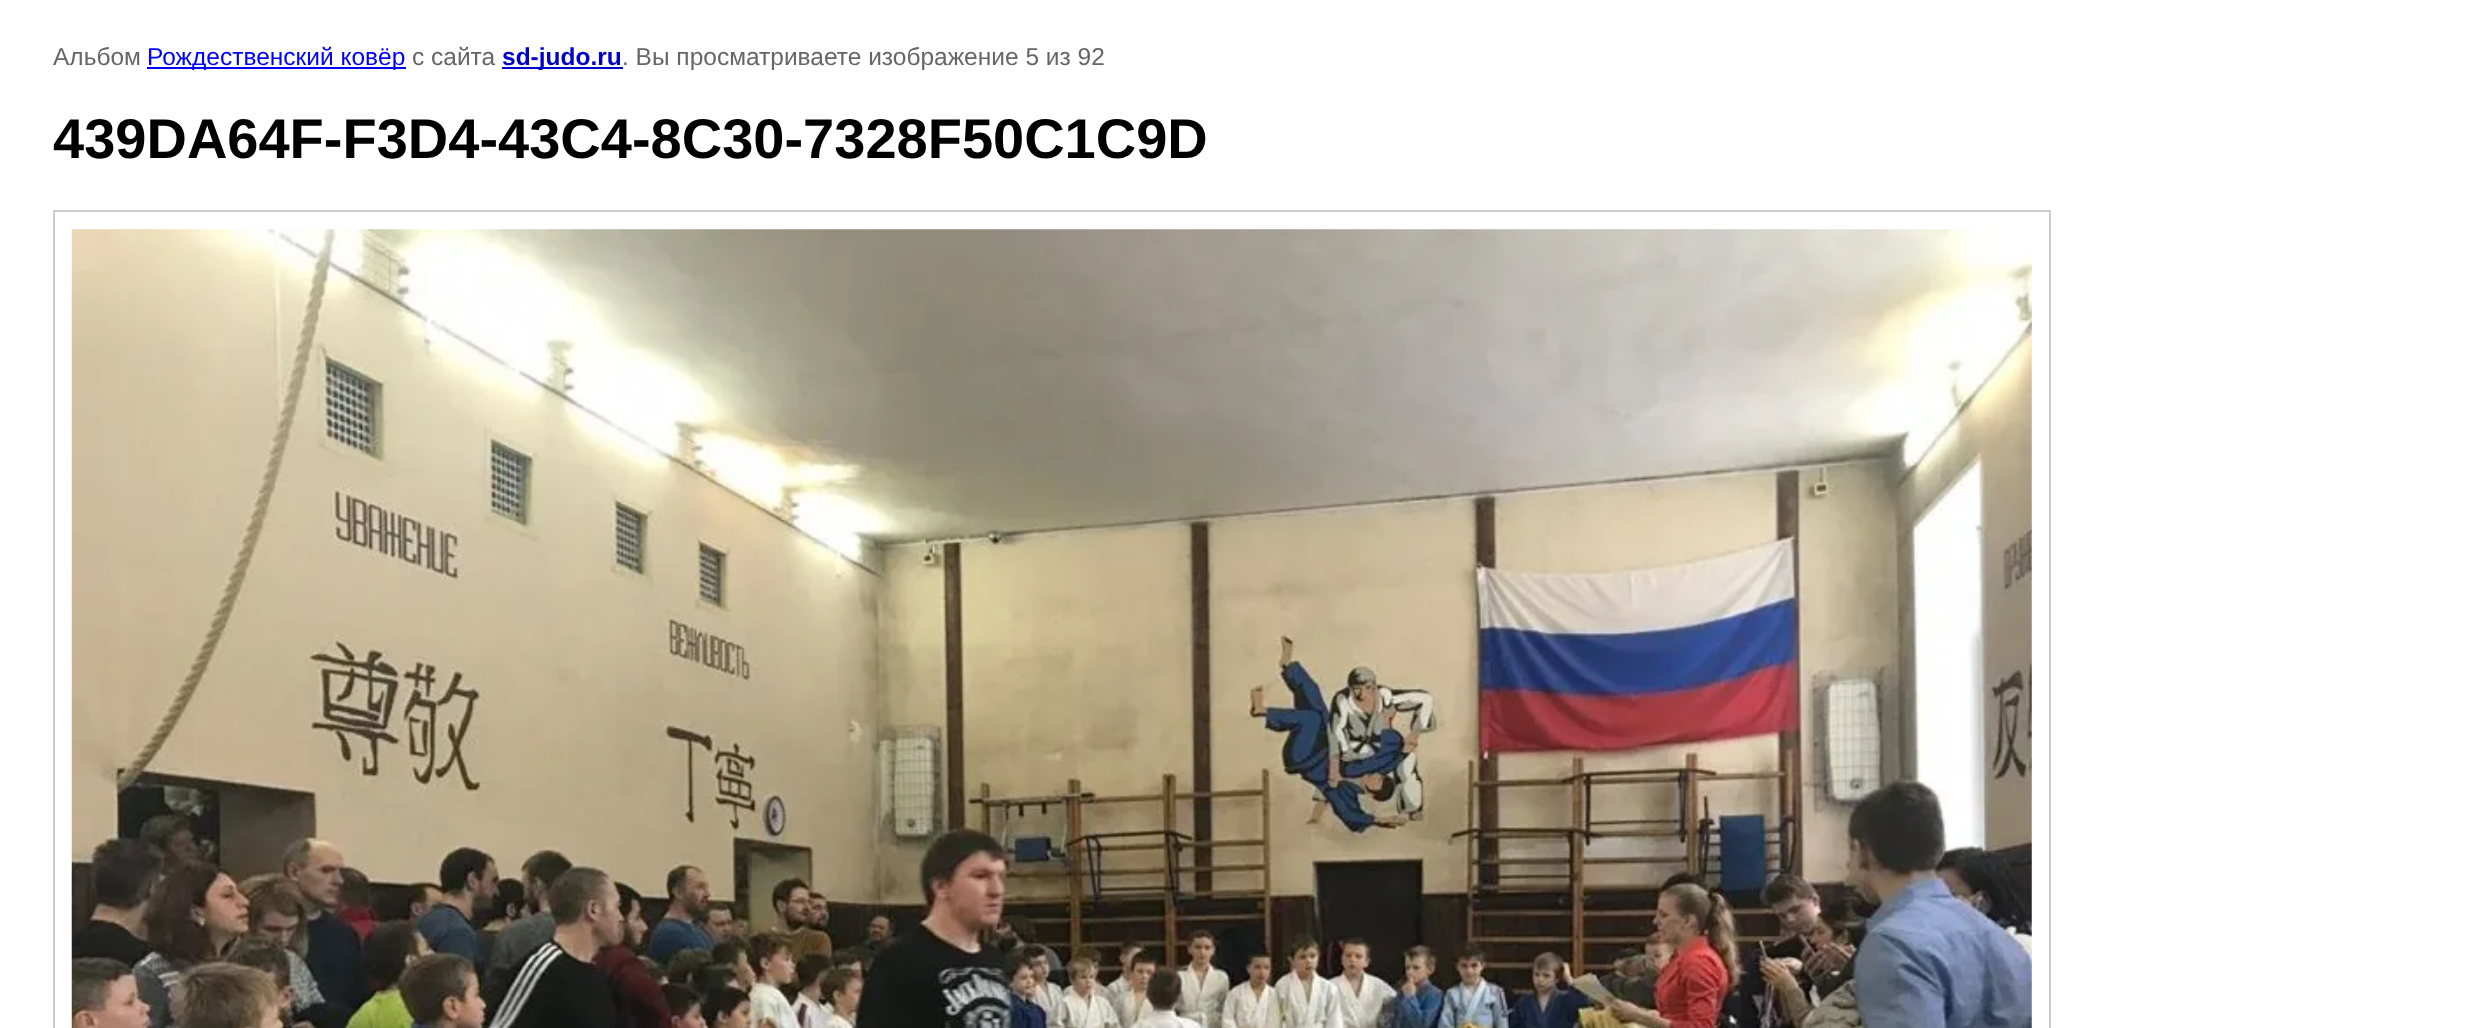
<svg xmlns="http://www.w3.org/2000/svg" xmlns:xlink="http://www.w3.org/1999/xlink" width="2466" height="1028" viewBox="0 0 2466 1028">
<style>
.cls-1{font:24.5px Liberation Sans;fill:#666666}
.cls-2{font:24.5px Liberation Sans;fill:#0000ff}
.cls-3{font:bold 24.5px Liberation Sans;fill:#0000cc}
.cls-4{font:bold 56px Liberation Sans;fill:#000000}
</style>
<rect width="100%" height="100%" fill="#ffffff"/>
<rect fill="#0000ff" x="147" y="67" width="259" height="2"/>
<rect fill="#0000cc" x="502" y="67" width="121" height="2"/>
<rect fill="none" stroke="#cccccc" stroke-width="2" x="54" y="211" width="1996" height="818"/>
<image xlink:href="image0.png" x="71" y="229" width="1961" height="799"/>
<text class="cls-1" x="53" y="65">Альбом</text>
<text class="cls-2" x="147" y="65">Рождественский ковёр</text>
<text class="cls-1" x="412" y="65">с сайта</text>
<text class="cls-3" x="502" y="65">sd-judo.ru</text>
<text class="cls-1" x="622" y="65">. Вы просматриваете изображение 5 из 92</text>
<text class="cls-4" x="53" y="158">439DA64F-F3D4-43C4-8C30-7328F50C1C9D</text>
</svg>
